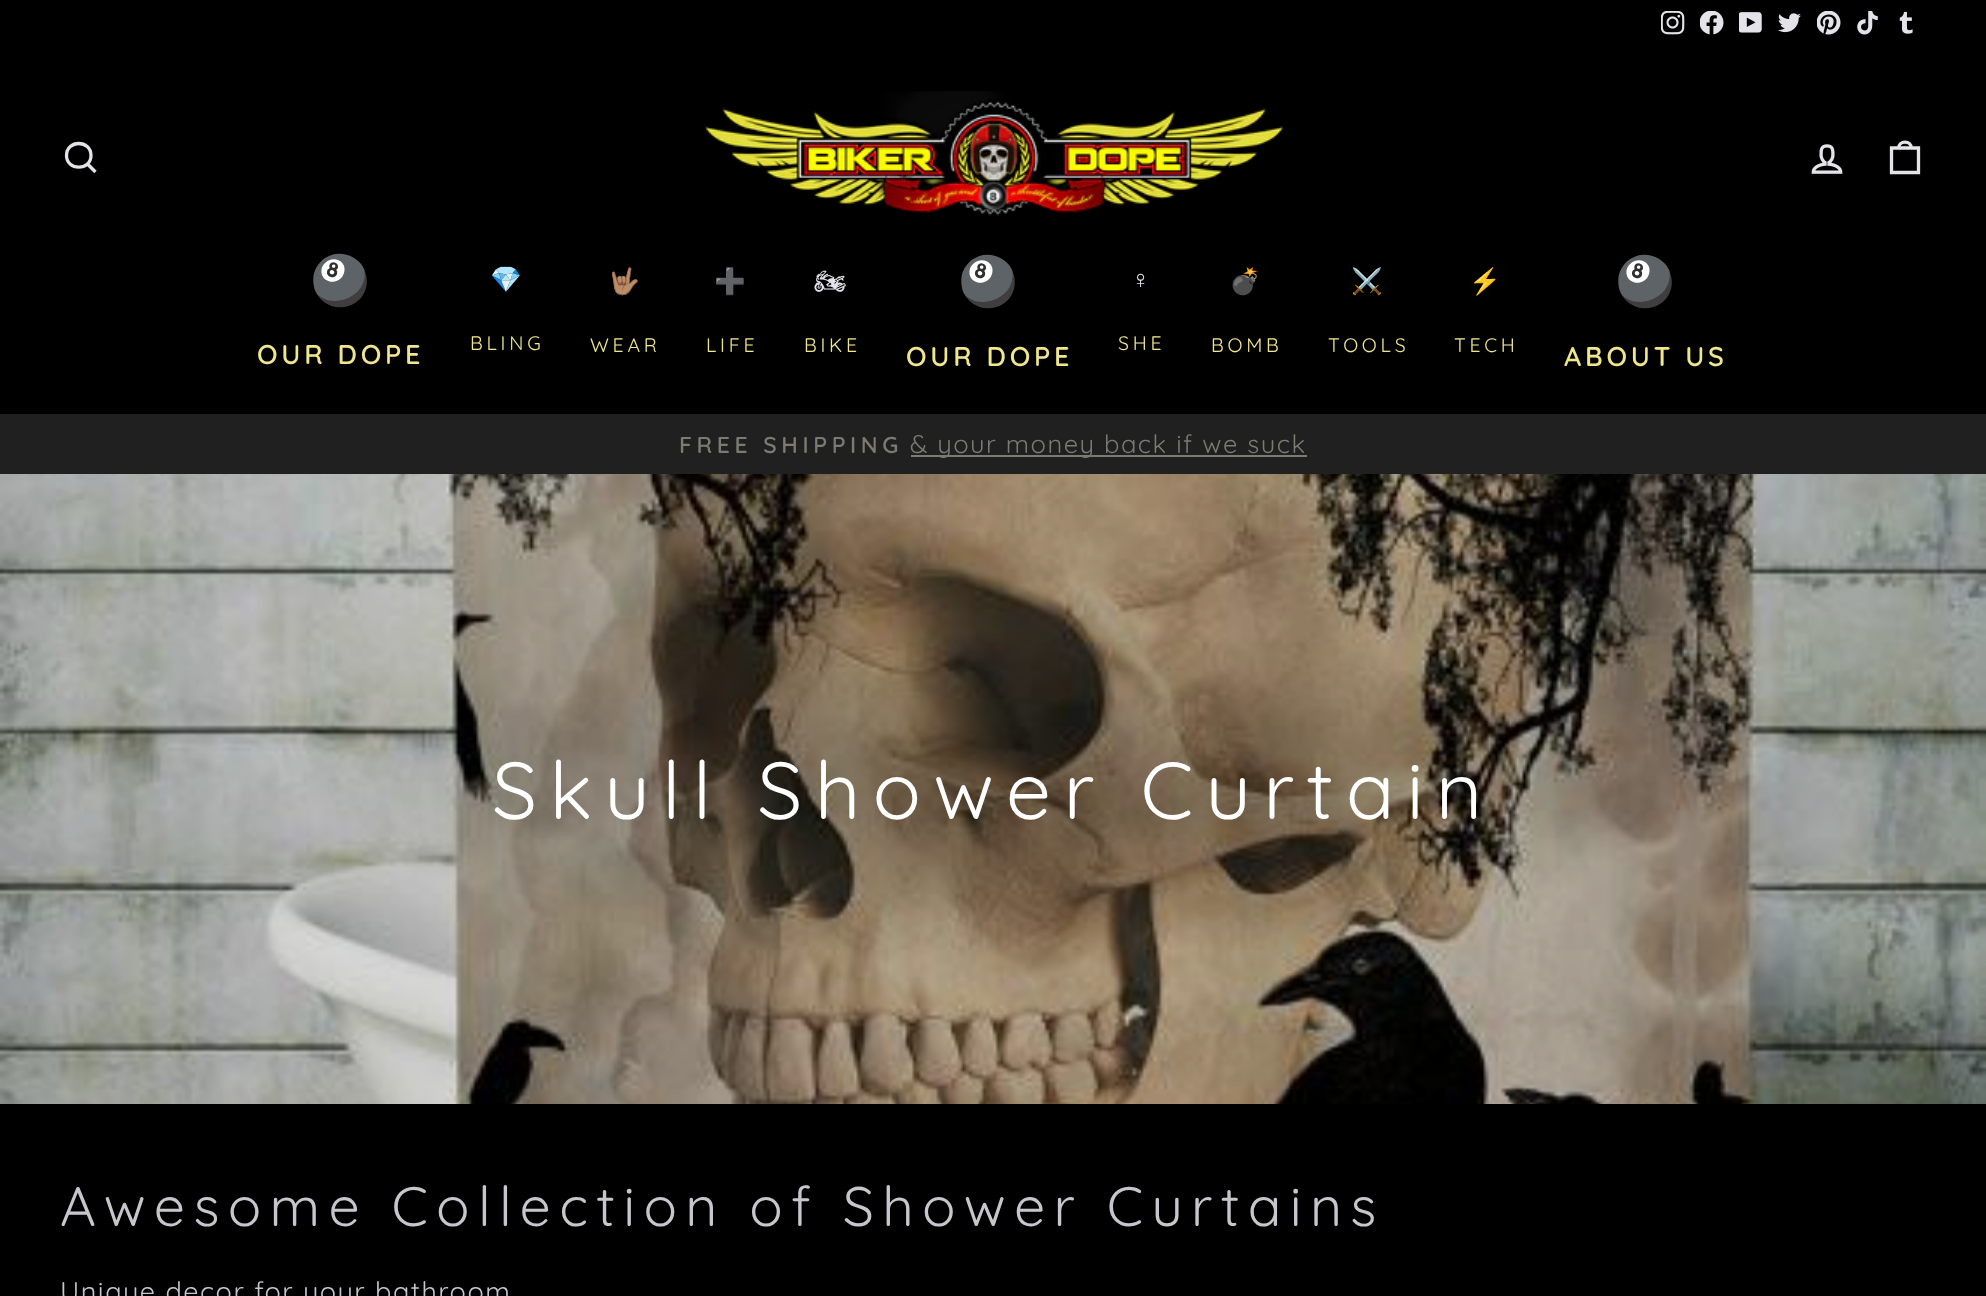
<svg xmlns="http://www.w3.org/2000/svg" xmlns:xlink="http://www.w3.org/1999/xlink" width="1986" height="1296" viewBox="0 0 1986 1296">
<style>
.cls-1{font:48px Noto Color Emoji;letter-spacing:3.75px;fill:#e3e3e9}
.cls-2{font:600 27px Quicksand;letter-spacing:3.75px;fill:#f0e68c}
.cls-3{font:25.5px Noto Color Emoji;letter-spacing:3.75px;fill:#e3e3e9}
.cls-4{font:19.5px Quicksand;letter-spacing:3.75px;fill:#f0e68c}
.cls-5{font:25.5px Noto Emoji;letter-spacing:3.75px;fill:#e3e3e9}
.cls-6{font:25.5px Liberation Sans;letter-spacing:3.75px;fill:#e3e3e9}
.cls-7{font:600 23px Quicksand;letter-spacing:4.6px;fill:#7b7b71}
.cls-8{font:25.5px Quicksand;letter-spacing:1.5px;fill:#7b7b71}
.cls-9{font:80.5px Quicksand;letter-spacing:12.1px;fill:#ffffff}
.cls-10{font:55.5px Quicksand;letter-spacing:8.3px;fill:#c6c6cc}
.cls-11{font:27px Quicksand;letter-spacing:1.5px;fill:#c6c6cc}
</style>
<rect width="100%" height="100%" fill="#000000"/>
<image xlink:href="image0.png" x="1661" y="11" width="24" height="24"/>
<image xlink:href="image1.png" x="1700" y="11" width="24" height="24"/>
<image xlink:href="image2.png" x="1739" y="12" width="23" height="21"/>
<image xlink:href="image3.png" x="1778" y="13" width="23" height="20"/>
<image xlink:href="image4.png" x="1817" y="11" width="24" height="24"/>
<image xlink:href="image5.png" x="1857" y="11" width="21" height="24"/>
<image xlink:href="image6.png" x="1899" y="11" width="14" height="23"/>
<path fill="none" stroke="#e3e3e9" stroke-width="3.3" d="M91 155.5C91 171 66.5 171 66.5 155.5C66.5 139.5 91 139.5 91 155.5ZM95.5 172L87.5 164"/>
<image xlink:href="image7.png" x="704" y="91" width="579" height="125"/>
<image xlink:href="image8.png" x="1811" y="144" width="32" height="30"/>
<path fill="none" stroke="#e3e3e9" stroke-width="3.3" d="M1891.5 148H1918.5V172.5H1891.5ZM1898.5 148.5C1898.5 140 1911.5 140 1911.5 148.5"/>
<rect fill="#202020" x="0" y="414" width="1986" height="60"/>
<rect fill="#7b7b71" x="911" y="455" width="396" height="2"/>
<image xlink:href="image9.png" x="0" y="474" width="1986" height="630"/>
<text class="cls-1" x="310" y="297">🎱</text>
<text class="cls-2" x="257" y="364">OUR DOPE</text>
<text class="cls-3" x="490" y="288">💎</text>
<text class="cls-4" x="470" y="350">BLING</text>
<text class="cls-3" x="608" y="290">🤟🏽</text>
<text class="cls-4" x="590" y="352">WEAR</text>
<text class="cls-3" x="714" y="290">➕</text>
<text class="cls-4" x="706" y="352">LIFE</text>
<text class="cls-5" x="814" y="290">🏍</text>
<text class="cls-4" x="804" y="352">BIKE</text>
<text class="cls-1" x="958" y="298">🎱</text>
<text class="cls-2" x="906" y="366">OUR DOPE</text>
<text class="cls-6" x="1131" y="288">♀</text>
<text class="cls-4" x="1118" y="350">SHE</text>
<text class="cls-3" x="1229" y="290">💣</text>
<text class="cls-4" x="1211" y="352">BOMB</text>
<text class="cls-3" x="1351" y="290">⚔️</text>
<text class="cls-4" x="1328" y="352">TOOLS</text>
<text class="cls-3" x="1469" y="290">⚡</text>
<text class="cls-4" x="1454" y="352">TECH</text>
<text class="cls-1" x="1615" y="298">🎱</text>
<text class="cls-2" x="1564" y="366">ABOUT US</text>
<text class="cls-7" x="679" y="453">FREE SHIPPING</text>
<text class="cls-8" x="910" y="453">&amp; your money back if we suck</text>
<text class="cls-9" x="492" y="819">Skull Shower Curtain</text>
<text class="cls-10" x="60" y="1226">Awesome Collection of Shower Curtains</text>
<text class="cls-11" x="60" y="1301">Unique decor for your bathroom</text>
</svg>
